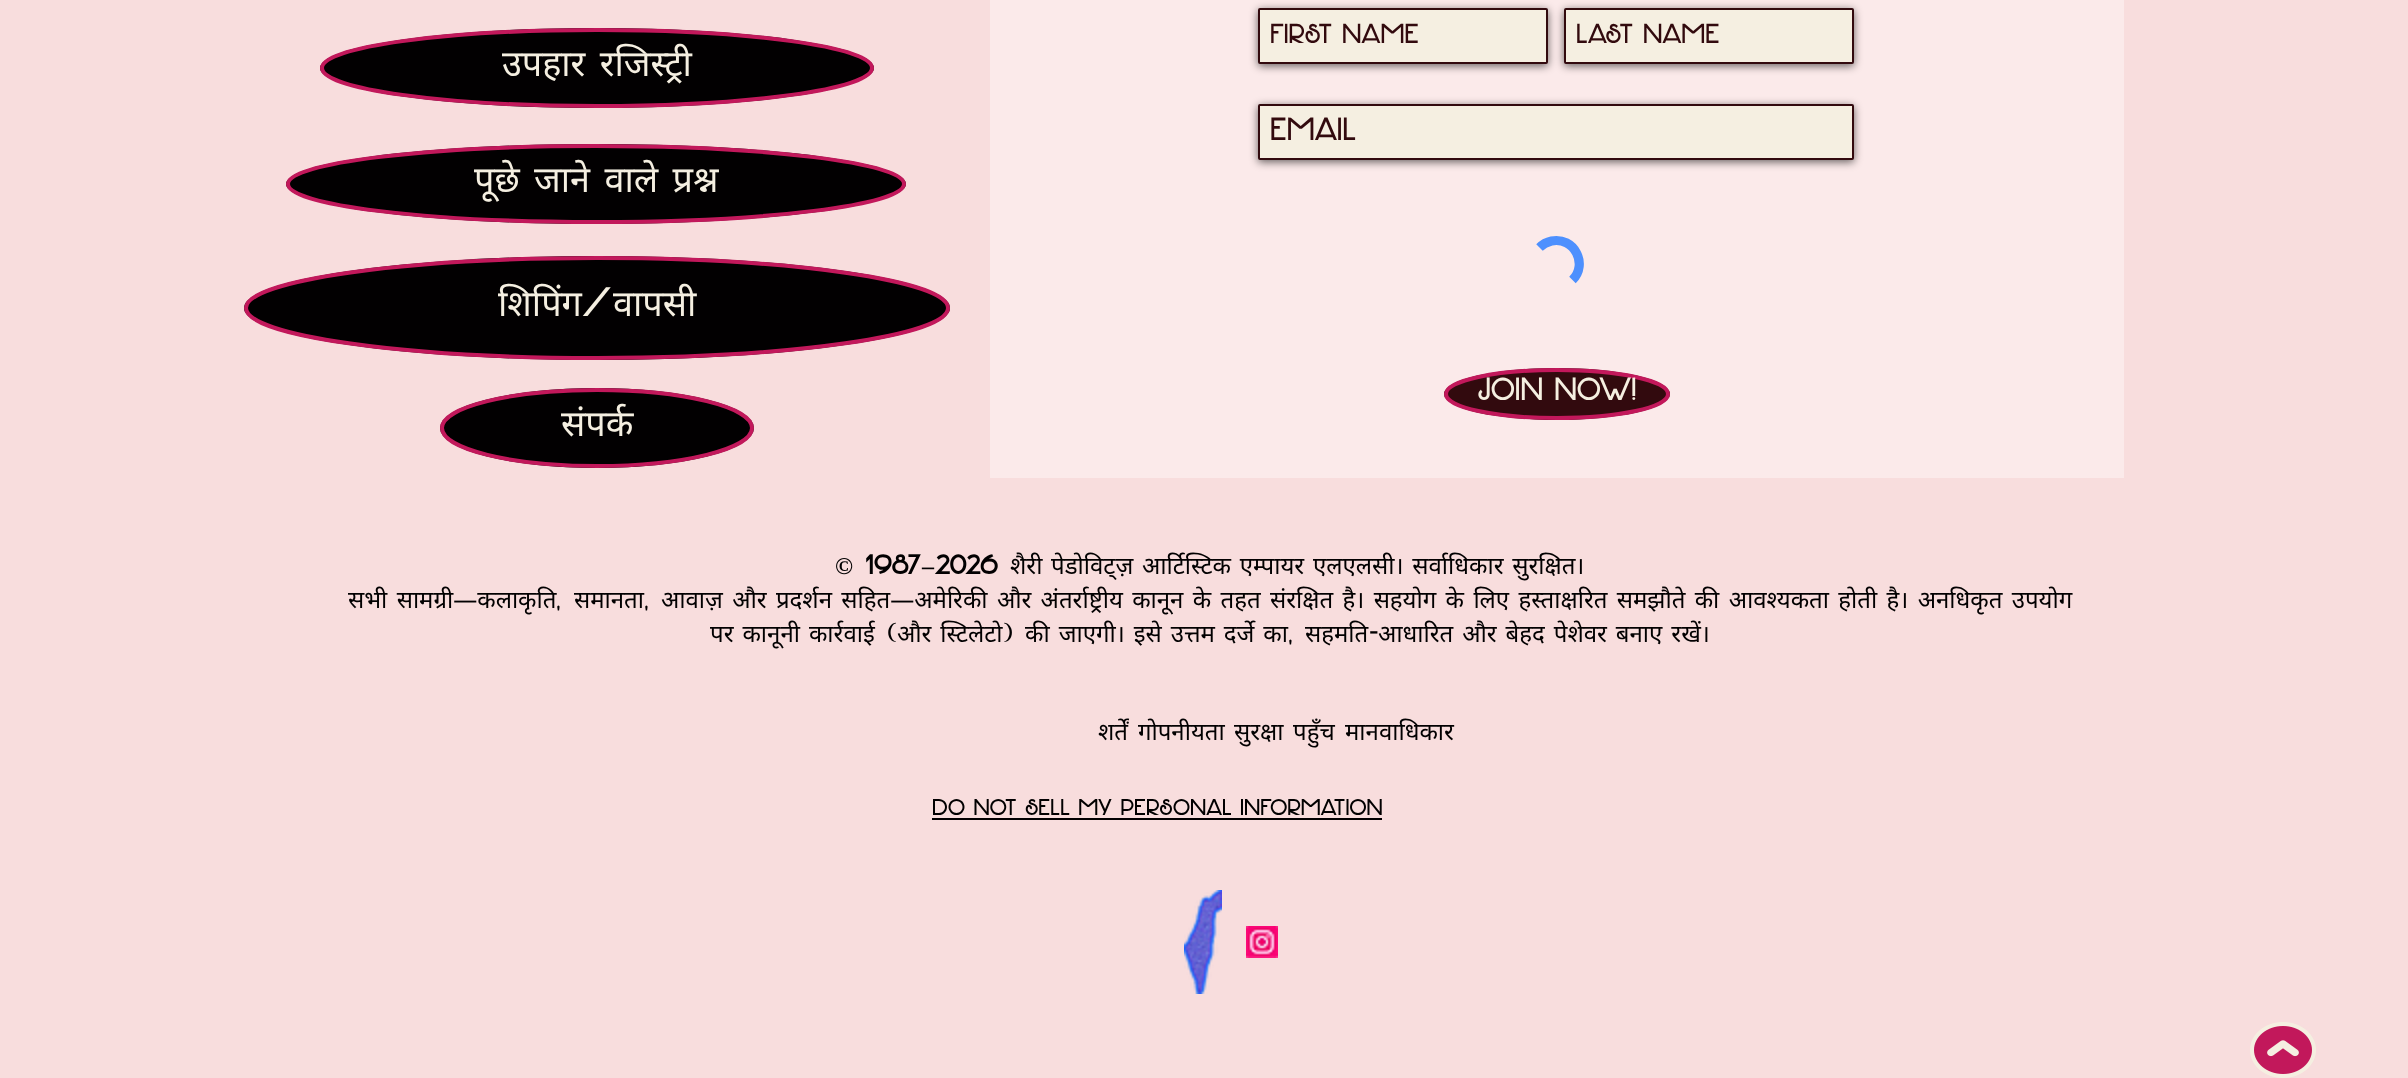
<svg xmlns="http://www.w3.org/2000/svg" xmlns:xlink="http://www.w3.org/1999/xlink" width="2408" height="1078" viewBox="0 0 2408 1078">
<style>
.cls-1{font:36px Noto Sans;fill:#f5efe1}
.cls-2{font:24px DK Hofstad;fill:#320a0e}
.cls-3{font:28px DK Hofstad;fill:#320a0e}
.cls-4{font:28px DK Hofstad;fill:#f5efe1}
.cls-5{font:36px DK Hofstad;fill:#f5efe1}
.cls-6{font:bold 24px Liberation Serif;fill:#020001}
.cls-7{font:bold 24px DK Hofstad;fill:#020001}
.cls-8{font:24px Noto Sans;fill:#020001}
.cls-9{font:24px DK Hofstad;fill:#020001}
.cls-10{font:20px DK Hofstad;fill:#020001}
</style>
<rect width="100%" height="100%" fill="#f8dddd"/>
<ellipse fill="#020001" cx="597" cy="68" rx="277" ry="40"/>
<path fill="none" stroke="#c2185b" stroke-width="4" d="M597 30C749 30 872 47 872 68C872 89 749 106 597 106C445 106 322 89 322 68C322 47 445 30 597 30Z"/>
<rect fill="#fbeaea" x="990" y="0" width="1134" height="478"/>
<rect fill="#000000" fill-opacity="0.6" filter="blur(4px)" x="1258" y="10" width="290" height="56" rx="2"/>
<rect fill="#f5efe1" stroke="#320a0e" stroke-width="2" x="1259" y="9" width="288" height="54" rx="1"/>
<rect fill="#000000" fill-opacity="0.6" filter="blur(4px)" x="1564" y="10" width="290" height="56" rx="2"/>
<rect fill="#f5efe1" stroke="#320a0e" stroke-width="2" x="1565" y="9" width="288" height="54" rx="1"/>
<rect fill="#000000" fill-opacity="0.6" filter="blur(4px)" x="1258" y="106" width="596" height="56" rx="2"/>
<rect fill="#f5efe1" stroke="#320a0e" stroke-width="2" x="1259" y="105" width="594" height="54" rx="1"/>
<path fill="none" stroke="#4d90fe" stroke-width="9.2" d="M1539.5 247.5C1543 244 1547 242 1551.5 241C1574 236.5 1588.5 264 1572.5 280"/>
<ellipse fill="#320a0e" cx="1557" cy="394" rx="113" ry="26"/>
<path fill="none" stroke="#c2185b" stroke-width="4" d="M1557 370C1618.5 370 1668 380.5 1668 394C1668 407.5 1618.5 418 1557 418C1495.5 418 1446 407.5 1446 394C1446 380.5 1495.5 370 1557 370Z"/>
<ellipse fill="#020001" cx="596" cy="184" rx="310" ry="40"/>
<path fill="none" stroke="#c2185b" stroke-width="4" d="M596 146C766 146 904 163 904 184C904 205 766 222 596 222C426 222 288 205 288 184C288 163 426 146 596 146Z"/>
<ellipse fill="#020001" cx="597" cy="308" rx="353" ry="52"/>
<path fill="none" stroke="#c2185b" stroke-width="4" d="M597 258C791 258 948 280.5 948 308C948 335.5 791 358 597 358C403 358 246 335.5 246 308C246 280.5 403 258 597 258Z"/>
<ellipse fill="#020001" cx="597" cy="428" rx="157" ry="40"/>
<path fill="none" stroke="#c2185b" stroke-width="4" d="M597 390C682.5 390 752 407 752 428C752 449 682.5 466 597 466C511.5 466 442 449 442 428C442 407 511.5 390 597 390Z"/>
<rect fill="#020001" x="932" y="818" width="450" height="2"/>
<image xlink:href="image0.png" x="1184" y="890" width="38" height="104"/>
<image xlink:href="image1.png" x="1246" y="926" width="32" height="32"/>
<image xlink:href="image2.png" x="2250" y="1022" width="66" height="56"/>
<text class="cls-1" x="502" y="76" word-spacing="5">उपहार रजिस्ट्री</text>
<text class="cls-2" x="1270" y="43">First name</text>
<text class="cls-2" x="1576" y="43">Last name</text>
<text class="cls-3" x="1270" y="140">Email</text>
<text class="cls-4" x="1477" y="400">Join now!</text>
<text class="cls-1" x="474" y="192" word-spacing="5">पूछे जाने वाले प्रश्न</text>
<text class="cls-1" x="498" y="316">शिपिंग</text>
<text class="cls-5" x="581" y="316">/</text>
<text class="cls-1" x="613" y="316">वापसी</text>
<text class="cls-1" x="561" y="436">संपर्क</text>
<text class="cls-6" x="835" y="574">©</text>
<text class="cls-7" x="865" y="574">1987</text>
<text class="cls-6" x="922" y="574">–</text>
<text class="cls-7" x="934" y="574">2026</text>
<text class="cls-8" x="1010" y="574" word-spacing="2.5">शैरी पेडोविट्ज़ आर्टिस्टिक एम्पायर एलएलसी। सर्वाधिकार सुरक्षित।</text>
<text class="cls-8" x="348" y="608" word-spacing="3.1">सभी सामग्री—कलाकृति</text>
<text class="cls-9" x="556" y="608">,</text>
<text class="cls-8" x="574" y="608">समानता</text>
<text class="cls-9" x="644" y="608">,</text>
<text class="cls-8" x="661" y="608" word-spacing="3.1">आवाज़ और प्रदर्शन सहित—अमेरिकी और अंतर्राष्ट्रीय कानून के तहत संरक्षित है। सहयोग के लिए हस्ताक्षरित समझौते की आवश्यकता होती है। अनधिकृत उपयोग</text>
<text class="cls-8" x="710" y="642" word-spacing="2.75">पर कानूनी कार्रवाई</text>
<text class="cls-9" x="887" y="642">(</text>
<text class="cls-8" x="897" y="642" word-spacing="2.75">और स्टिलेटो</text>
<text class="cls-9" x="1003" y="642">)</text>
<text class="cls-8" x="1025" y="642" word-spacing="2.75">की जाएगी। इसे उत्तम दर्जे का</text>
<text class="cls-8" x="1305" y="642">सहमति</text>
<text class="cls-9" x="1369" y="642">-</text>
<text class="cls-8" x="1378" y="642" word-spacing="2.75">आधारित और बेहद पेशेवर बनाए रखें।</text>
<text class="cls-9" x="1288" y="642">,</text>
<text class="cls-8" x="1098" y="740">शर्तें</text>
<text class="cls-8" x="1138" y="740">गोपनीयता</text>
<text class="cls-8" x="1234" y="740">सुरक्षा</text>
<text class="cls-8" x="1293" y="740">पहुँच</text>
<text class="cls-8" x="1345" y="740">मानवाधिकार</text>
<text class="cls-10" x="932" y="815">Do Not Sell My Personal Information</text>
</svg>
